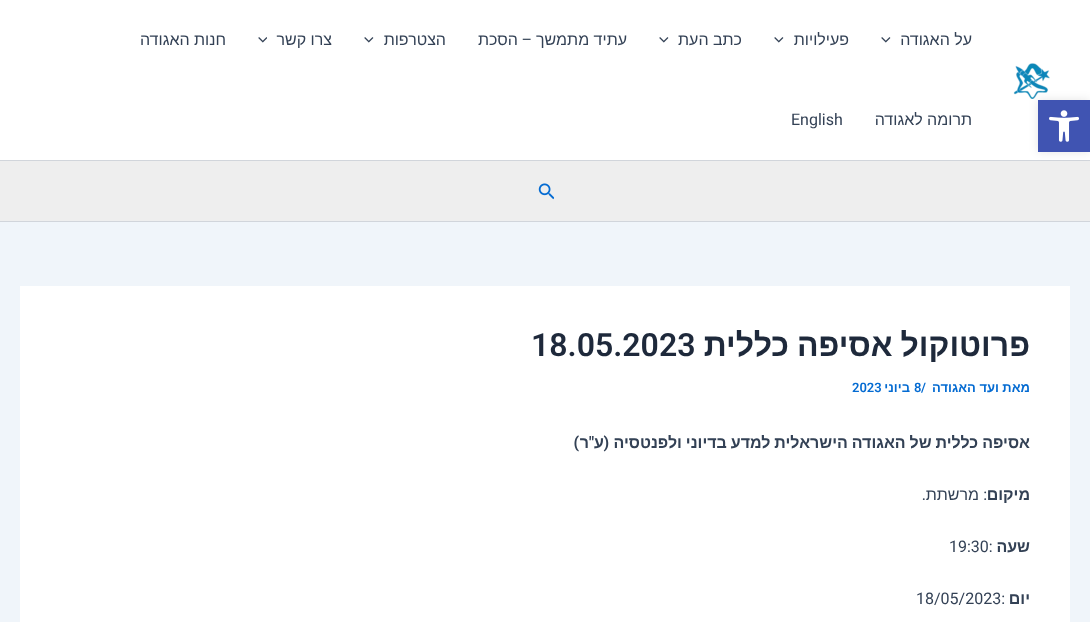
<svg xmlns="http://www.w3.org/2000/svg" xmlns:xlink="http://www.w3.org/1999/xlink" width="1090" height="622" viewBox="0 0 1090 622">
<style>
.cls-1{font:16px Liberation Sans;direction:rtl;fill:#334155}
.cls-2{font:16px Roboto;direction:rtl;fill:#334155}
.cls-3{font:16px Roboto;fill:#334155}
.cls-4{font:bold 32px Liberation Sans;direction:rtl;fill:#1e293b}
.cls-5{font:600 32px Roboto;fill:#1e293b}
.cls-6{font:bold 13px Liberation Sans;direction:rtl;fill:#046bd2}
.cls-7{font:600 13px Roboto;fill:#046bd2}
.cls-8{font:bold 16px Liberation Sans;direction:rtl;fill:#334155}
.cls-9{font:bold 16px Roboto;direction:rtl;fill:#334155}
</style>
<rect width="100%" height="100%" fill="#f0f5fa"/>
<rect fill="#ffffff" x="0" y="0" width="1090" height="160"/>
<rect fill="#d1d5db" x="0" y="160" width="1090" height="1"/>
<image xlink:href="image1.png" x="1013" y="63" width="37" height="36"/>
<rect fill="#eeeeee" x="0" y="161" width="1090" height="60"/>
<rect fill="#000000" fill-opacity="0.1" filter="blur(5px)" x="1038" y="100" width="52" height="52"/>
<rect fill="#4054b2" x="1038" y="100" width="52" height="52"/>
<image xlink:href="image0.png" x="1049" y="110" width="30" height="32"/>
<image xlink:href="image2.png" x="881" y="37" width="10" height="6"/>
<image xlink:href="image2.png" x="774" y="37" width="10" height="6"/>
<image xlink:href="image2.png" x="659" y="37" width="10" height="6"/>
<image xlink:href="image2.png" x="364" y="37" width="10" height="6"/>
<image xlink:href="image3.png" x="258" y="37" width="9" height="6"/>
<rect fill="#d1d5db" x="0" y="221" width="1090" height="1"/>
<image xlink:href="image4.png" x="538" y="183" width="16" height="17"/>
<rect fill="#ffffff" x="20" y="286" width="1050" height="336"/>
<text class="cls-1" x="972" y="45">על האגודה</text>
<text class="cls-1" x="849" y="45">פעילויות</text>
<text class="cls-1" x="742" y="45">כתב העת</text>
<text class="cls-1" x="627" y="45">עתיד מתמשך</text>
<text class="cls-2" x="532" y="45">–</text>
<text class="cls-1" x="518" y="45">הסכת</text>
<text class="cls-1" x="446" y="45">הצטרפות</text>
<text class="cls-1" x="332" y="45">צרו קשר</text>
<text class="cls-1" x="226" y="45">חנות האגודה</text>
<text class="cls-1" x="972" y="125">תרומה לאגודה</text>
<text class="cls-3" x="791" y="125">English</text>
<text class="cls-4" x="1030" y="356" word-spacing="-1">פרוטוקול אסיפה כללית</text>
<text class="cls-5" x="531" y="356">18.05.2023</text>
<text class="cls-6" x="1030" y="392">מאת</text>
<text class="cls-6" x="999" y="392">ועד האגודה</text>
<text class="cls-7" x="921" y="392">/</text>
<text class="cls-7" x="914" y="392">8</text>
<text class="cls-6" x="910" y="392">ביוני</text>
<text class="cls-7" x="852" y="392">2023</text>
<text class="cls-8" x="1030" y="448" word-spacing="-0.5">אסיפה כללית של האגודה הישראלית למדע בדיוני ולפנטסיה</text>
<text class="cls-9" x="609" y="448">(</text>
<text class="cls-8" x="604" y="448">ע</text>
<text class="cls-9" x="594" y="448">"</text>
<text class="cls-8" x="589" y="448">ר</text>
<text class="cls-9" x="579" y="448">)</text>
<text class="cls-8" x="1030" y="500">מיקום</text>
<text class="cls-2" x="987" y="500">:</text>
<text class="cls-1" x="979" y="500">מרשתת</text>
<text class="cls-2" x="926" y="500">.</text>
<text class="cls-8" x="1030" y="552">שעה</text>
<text class="cls-3" x="949" y="552">19:30:</text>
<text class="cls-8" x="1030" y="604">יום</text>
<text class="cls-3" x="916" y="604">18/05/2023:</text>
</svg>
